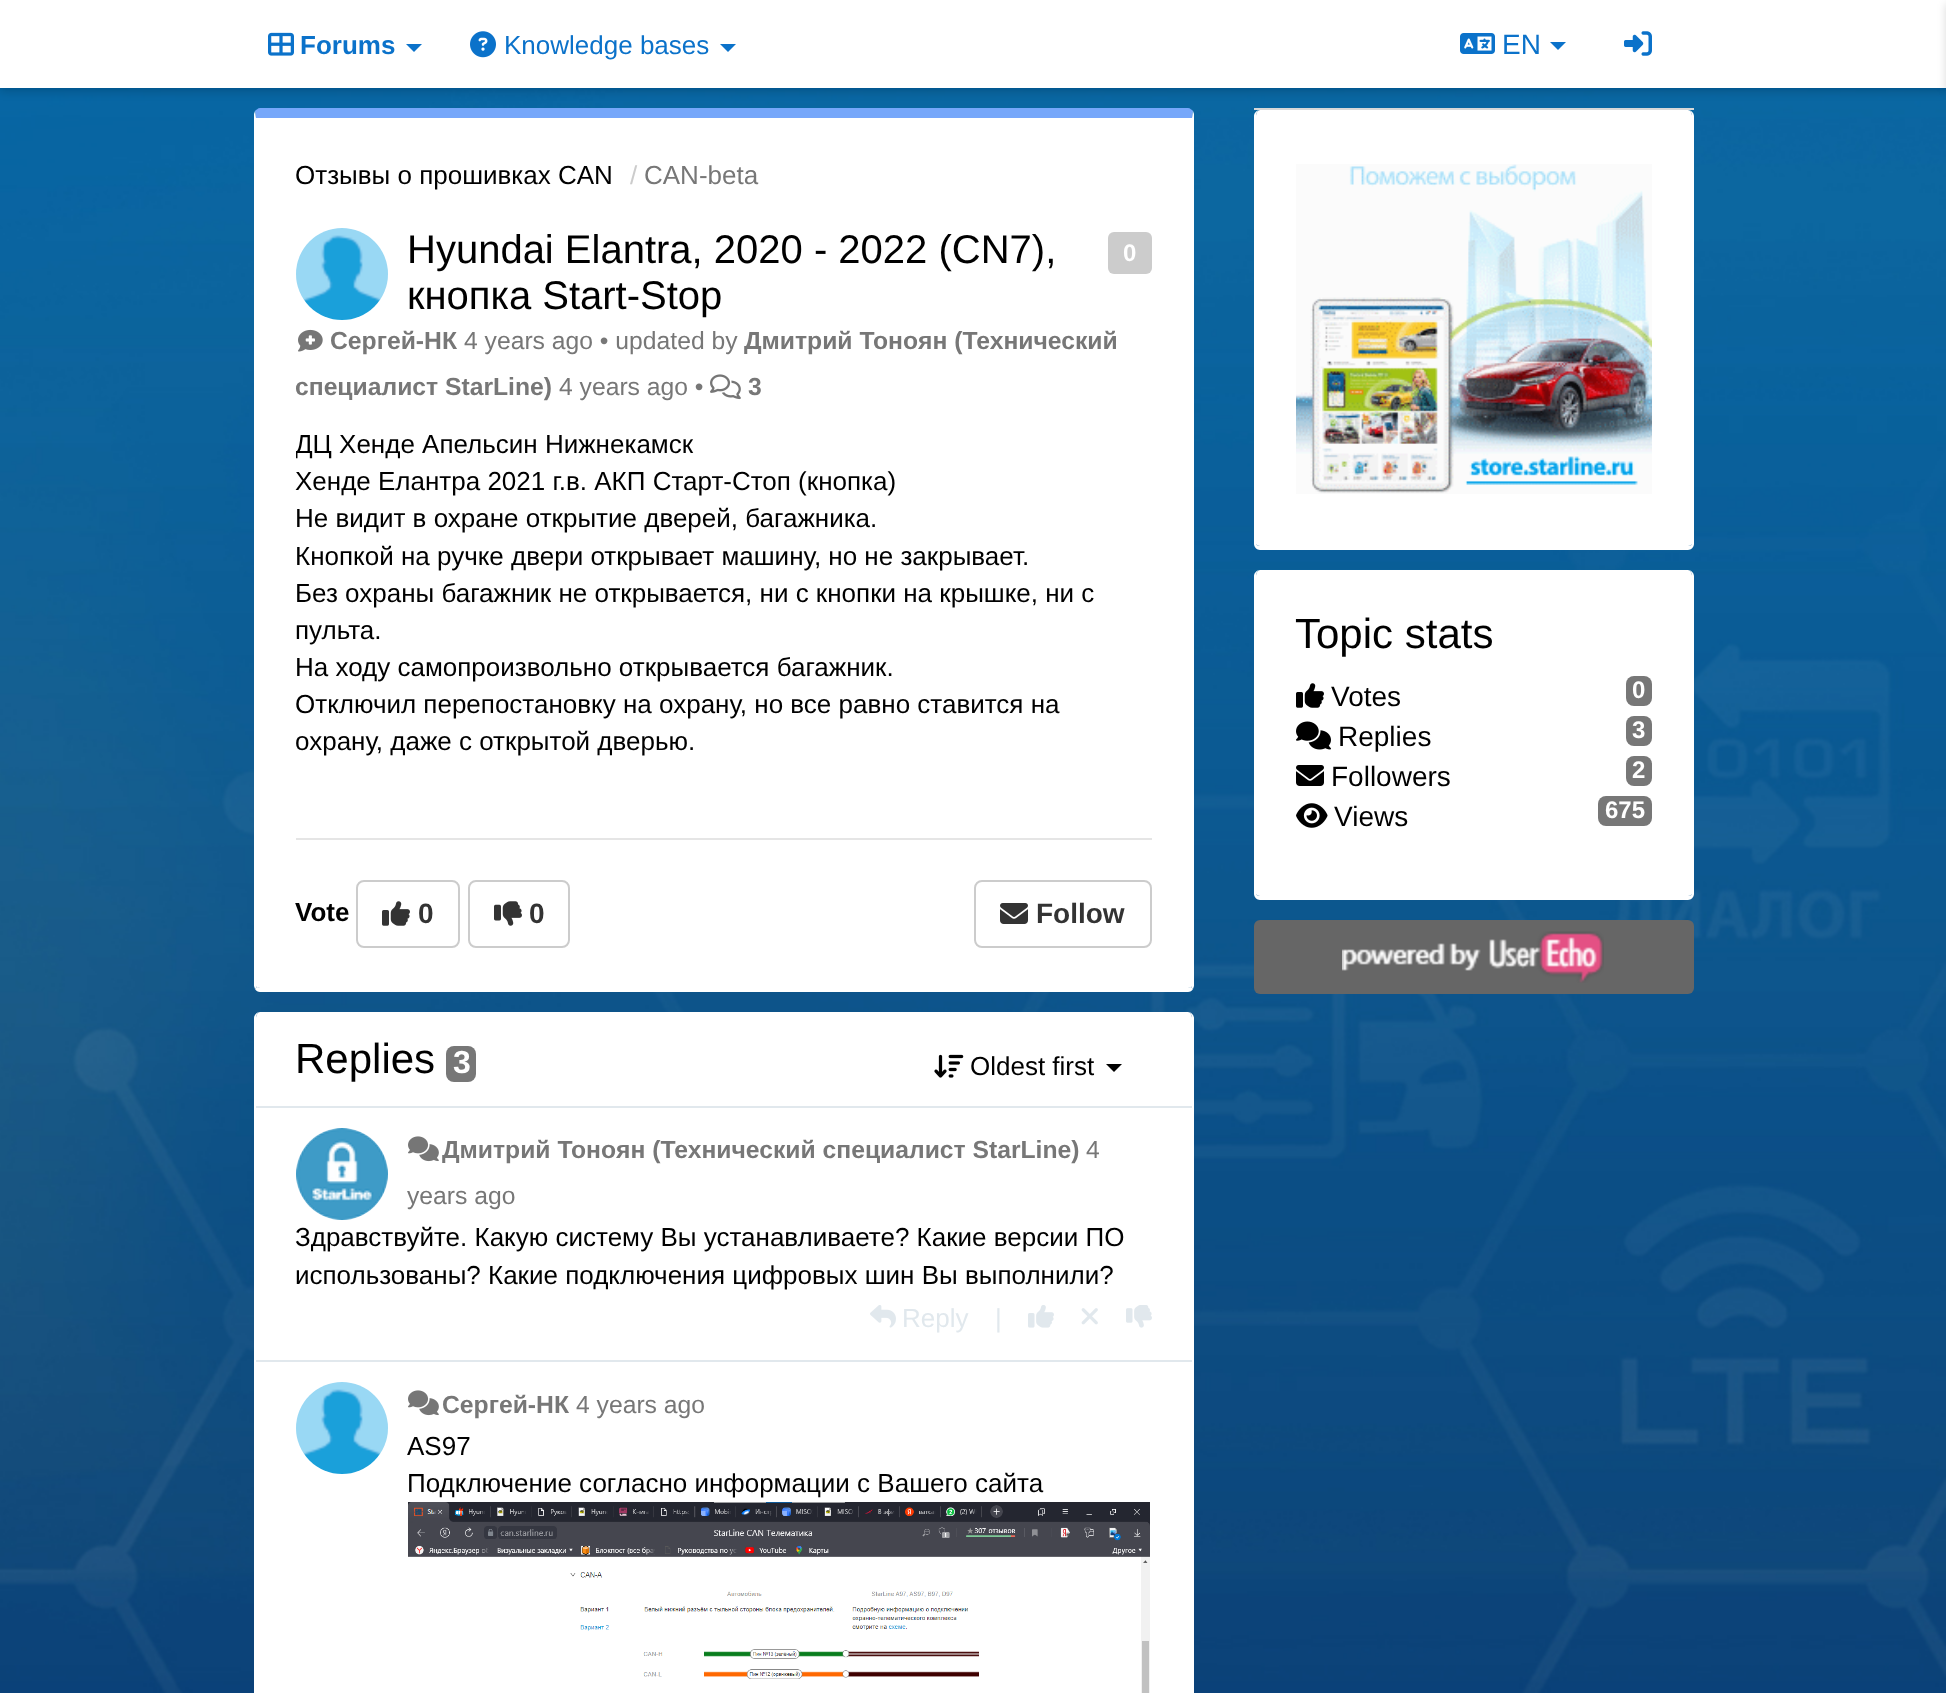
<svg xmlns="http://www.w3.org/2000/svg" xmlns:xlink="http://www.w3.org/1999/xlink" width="1946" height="1693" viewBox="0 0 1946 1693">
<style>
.cls-1{font:bold 26px Liberation Sans;fill:#0b72ca}
.cls-2{font:26px Liberation Sans;fill:#0b72ca}
.cls-3{font:28px Liberation Sans;fill:#0b72ca}
.cls-4{font:26px Liberation Sans;fill:#000000}
.cls-5{font:26px Liberation Sans;fill:#cccccc}
.cls-6{font:26px Liberation Sans;fill:#777777}
.cls-7{font:40px Liberation Sans;fill:#000000}
.cls-8{font:bold 24px Liberation Sans;fill:#ffffff}
.cls-9{font:bold 24.7px Liberation Sans;fill:#777777}
.cls-10{font:24.7px Liberation Sans;fill:#777777}
.cls-11{font:bold 26px Liberation Sans;fill:#000000}
.cls-12{font:bold 28px Liberation Sans;fill:#333333}
.cls-13{font:42px Liberation Sans;fill:#000000}
.cls-14{font:bold 32px Liberation Sans;fill:#ffffff}
.cls-15{font:26px Liberation Sans;fill:#e1e8ed}
.cls-16{font:28px Liberation Sans;fill:#000000}
</style>
<defs>
<clipPath id="clip1"><rect x="296" y="428" width="856" height="370"/></clipPath>
</defs>
<rect width="100%" height="100%" fill="#ffffff"/>
<image xlink:href="image0.png" x="0" y="88" width="1946" height="1605"/>
<rect fill="#000000" fill-opacity="0.15" filter="blur(4px)" x="0" y="4" width="1946" height="88"/>
<rect fill="#ffffff" x="0" y="0" width="1946" height="88"/>
<image xlink:href="image1.png" x="268" y="32" width="26" height="24"/>
<path fill="#0b72ca" d="M406 44H422L414 52Z"/>
<image xlink:href="image2.png" x="470" y="31" width="26" height="27"/>
<path fill="#0b72ca" d="M720 44H736L728 52Z"/>
<image xlink:href="image3.png" x="1460" y="33" width="35" height="21"/>
<path fill="#0b72ca" d="M1550 42H1566L1558 50Z"/>
<image xlink:href="image4.png" x="1624" y="31" width="28" height="25"/>
<rect fill="#000000" fill-opacity="0.15" filter="blur(4px)" x="1946" y="4" width="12" height="88"/>
<path fill="#ffffff" d="M260 118H1192V986C1192 987 1190 988 1188 988H260C258 988 256 987 256 986V118Z"/>
<path fill="#76a7fa" d="M260 108C258 108 256 110 255 111L256 118H1192L1193 111C1192 110 1190 108 1188 108Z"/>
<path fill="#ffffff" d="M1194 986V114L1193 111L1192 118V986L1191 987L1193 989Z"/>
<path fill="#ffffff" d="M260 992H1188C1190 992 1192 991 1193 989L1191 987L1188 988H260L257 987L255 989C256 991 258 992 260 992Z"/>
<path fill="#ffffff" d="M254 114V986L255 989L257 987L256 986V118L255 111Z"/>
<image xlink:href="image5.png" x="296" y="228" width="92" height="92"/>
<rect fill="#cccccc" x="1108" y="232" width="44" height="42" rx="6"/>
<image xlink:href="image6.png" x="298" y="329" width="25" height="23"/>
<image xlink:href="image7.png" x="710" y="374" width="31" height="26"/>
<rect fill="#e5e5e5" x="296" y="838" width="856" height="2"/>
<rect fill="none" stroke="#cccccc" stroke-width="2" x="357" y="881" width="102" height="66" rx="7"/>
<image xlink:href="image8.png" x="382" y="901" width="28" height="25"/>
<rect fill="none" stroke="#cccccc" stroke-width="2" x="469" y="881" width="100" height="66" rx="7"/>
<image xlink:href="image9.png" x="494" y="901" width="28" height="25"/>
<rect fill="none" stroke="#cccccc" stroke-width="2" x="975" y="881" width="176" height="66" rx="7"/>
<image xlink:href="image10.png" x="1000" y="903" width="28" height="21"/>
<path fill="#ffffff" d="M260 1012H1188C1190 1012 1192 1015 1192 1018V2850C1192 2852 1190 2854 1188 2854H260C258 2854 256 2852 256 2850V1018C256 1015 258 1012 260 1012Z"/>
<path fill="#ffffff" fill-rule="evenodd" d="M260 1012H1188C1191 1012 1194 1015 1194 1018V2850C1194 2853 1191 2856 1188 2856H260C257 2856 254 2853 254 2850V1018C254 1015 257 1012 260 1012ZM260 1012H1188C1190 1012 1192 1015 1192 1018V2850C1192 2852 1190 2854 1188 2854H260C258 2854 256 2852 256 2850V1018C256 1015 258 1012 260 1012Z"/>
<rect fill="#777777" x="446" y="1046" width="30" height="36" rx="8"/>
<image xlink:href="image11.png" x="934" y="1054" width="30" height="24"/>
<path fill="#000000" d="M1106 1064H1122L1114 1072Z"/>
<rect fill="#e1e8ed" x="256" y="1106" width="936" height="2"/>
<rect fill="#e1e8ed" x="256" y="1360" width="936" height="2"/>
<image xlink:href="image12.png" x="296" y="1128" width="92" height="92"/>
<image xlink:href="image13.png" x="408" y="1136" width="31" height="26"/>
<image xlink:href="image14.png" x="870" y="1305" width="26" height="23"/>
<image xlink:href="image15.png" x="1028" y="1305" width="26" height="23"/>
<image xlink:href="image16.png" x="1081" y="1308" width="17" height="17"/>
<image xlink:href="image17.png" x="1126" y="1305" width="26" height="23"/>
<image xlink:href="image18.png" x="296" y="1382" width="92" height="92"/>
<image xlink:href="image13.png" x="408" y="1390" width="31" height="26"/>
<image xlink:href="image19.png" x="408" y="1502" width="742" height="191"/>
<rect fill="#d8d8d8" x="1254" y="108" width="440" height="2"/>
<path fill="#ffffff" d="M1260 110H1688C1690 110 1692 113 1692 116V544C1692 545 1690 546 1688 546H1260C1258 546 1256 545 1256 544V116C1256 113 1258 110 1260 110Z"/>
<path fill="#ffffff" fill-rule="evenodd" d="M1260 110H1688C1691 110 1694 113 1694 116V544C1694 547 1691 550 1688 550H1260C1257 550 1254 547 1254 544V116C1254 113 1257 110 1260 110ZM1260 110H1688C1690 110 1692 113 1692 116V544C1692 545 1690 546 1688 546H1260C1258 546 1256 545 1256 544V116C1256 113 1258 110 1260 110Z"/>
<image xlink:href="image20.png" x="1296" y="164" width="356" height="330"/>
<path fill="#ffffff" d="M1260 570H1688C1690 570 1692 573 1692 576V894C1692 895 1690 896 1688 896H1260C1258 896 1256 895 1256 894V576C1256 573 1258 570 1260 570Z"/>
<path fill="#ffffff" fill-rule="evenodd" d="M1260 570H1688C1691 570 1694 573 1694 576V894C1694 897 1691 900 1688 900H1260C1257 900 1254 897 1254 894V576C1254 573 1257 570 1260 570ZM1260 570H1688C1690 570 1692 573 1692 576V894C1692 895 1690 896 1688 896H1260C1258 896 1256 895 1256 894V576C1256 573 1258 570 1260 570Z"/>
<image xlink:href="image21.png" x="1296" y="683" width="28" height="25"/>
<rect fill="#777777" x="1626" y="676" width="26" height="30" rx="8"/>
<image xlink:href="image22.png" x="1296" y="721" width="35" height="29"/>
<rect fill="#777777" x="1626" y="716" width="26" height="30" rx="8"/>
<image xlink:href="image23.png" x="1296" y="765" width="28" height="21"/>
<rect fill="#777777" x="1626" y="756" width="26" height="30" rx="8"/>
<image xlink:href="image24.png" x="1296" y="803" width="32" height="25"/>
<rect fill="#777777" x="1598" y="796" width="54" height="30" rx="8"/>
<rect fill="#666666" x="1254" y="920" width="440" height="74" rx="6"/>
<image xlink:href="image25.png" x="1342" y="931" width="262" height="52"/>
<text class="cls-1" x="300" y="54">Forums</text>
<text class="cls-2" x="504" y="54">Knowledge bases</text>
<text class="cls-3" x="1502" y="54">EN</text>
<text class="cls-4" x="295" y="184">Отзывы о прошивках CAN</text>
<text class="cls-5" x="630" y="184">/</text>
<text class="cls-6" x="644" y="184">CAN-beta</text>
<text class="cls-7"><tspan x="407" y="263">Hyundai Elantra, 2020 - 2022 (CN7),</tspan><tspan x="407" y="309">кнопка Start-Stop</tspan></text>
<text class="cls-8" x="1123" y="261">0</text>
<text class="cls-9" x="330" y="349">Сергей-НК</text>
<text class="cls-10" x="464" y="349">4 years ago • updated by</text>
<text class="cls-9" x="744" y="349">Дмитрий Тонoян (Технический</text>
<text class="cls-9" x="295" y="395">специалист StarLine)</text>
<text class="cls-10" x="559" y="395">4 years ago •</text>
<text class="cls-9" x="748" y="395">3</text>
<g clip-path="url(#clip1)">
<text class="cls-4" x="295" y="453">ДЦ Хенде Апельсин Нижнекамск</text>
</g>
<text class="cls-4"><tspan x="295" y="490">Хенде Елантра 2021 г.в. АКП Старт-Стоп (кнопка)</tspan><tspan x="295" y="527">Не видит в охране открытие дверей, багажника.</tspan><tspan x="295" y="565">Кнопкой на ручке двери открывает машину, но не закрывает.</tspan><tspan x="295" y="602">Без охраны багажник не открывается, ни с кнопки на крышке, ни с</tspan><tspan x="295" y="639">пульта.</tspan><tspan x="295" y="676">На ходу самопроизвольно открывается багажник.</tspan><tspan x="295" y="713">Отключил перепостановку на охрану, но все равно ставится на</tspan><tspan x="295" y="750">охрану, даже с открытой дверью.</tspan></text>
<text class="cls-11" x="295" y="921">Vote</text>
<text class="cls-12" x="418" y="923">0</text>
<text class="cls-12" x="529" y="923">0</text>
<text class="cls-12" x="1036" y="923">Follow</text>
<text class="cls-13" x="295" y="1073">Replies</text>
<text class="cls-14" x="453" y="1073">3</text>
<text class="cls-4" x="970" y="1075">Oldest first</text>
<text class="cls-9" x="442" y="1158">Дмитрий Тонoян (Технический специалист StarLine)</text>
<text class="cls-10" x="1086" y="1158">4</text>
<text class="cls-10" x="407" y="1204">years ago</text>
<text class="cls-4"><tspan x="295" y="1246">Здравствуйте. Какую систему Вы устанавливаете? Какие версии ПО</tspan><tspan x="295" y="1284">использованы? Какие подключения цифровых шин Вы выполнили?</tspan></text>
<text class="cls-15" x="902" y="1327">Reply</text>
<text class="cls-15" x="995" y="1327">|</text>
<text class="cls-9" x="442" y="1413">Сергей-НК</text>
<text class="cls-10" x="576" y="1413">4 years ago</text>
<text class="cls-4"><tspan x="407" y="1455">AS97</tspan><tspan x="407" y="1492">Подключение согласно информации с Вашего сайта</tspan></text>
<text class="cls-13" x="1295" y="648">Topic stats</text>
<text class="cls-16" x="1331" y="706">Votes</text>
<text class="cls-8" x="1632" y="698">0</text>
<text class="cls-16" x="1338" y="746">Replies</text>
<text class="cls-8" x="1632" y="738">3</text>
<text class="cls-16" x="1331" y="786">Followers</text>
<text class="cls-8" x="1632" y="778">2</text>
<text class="cls-16" x="1334" y="826">Views</text>
<text class="cls-8" x="1605" y="818">675</text>
</svg>
